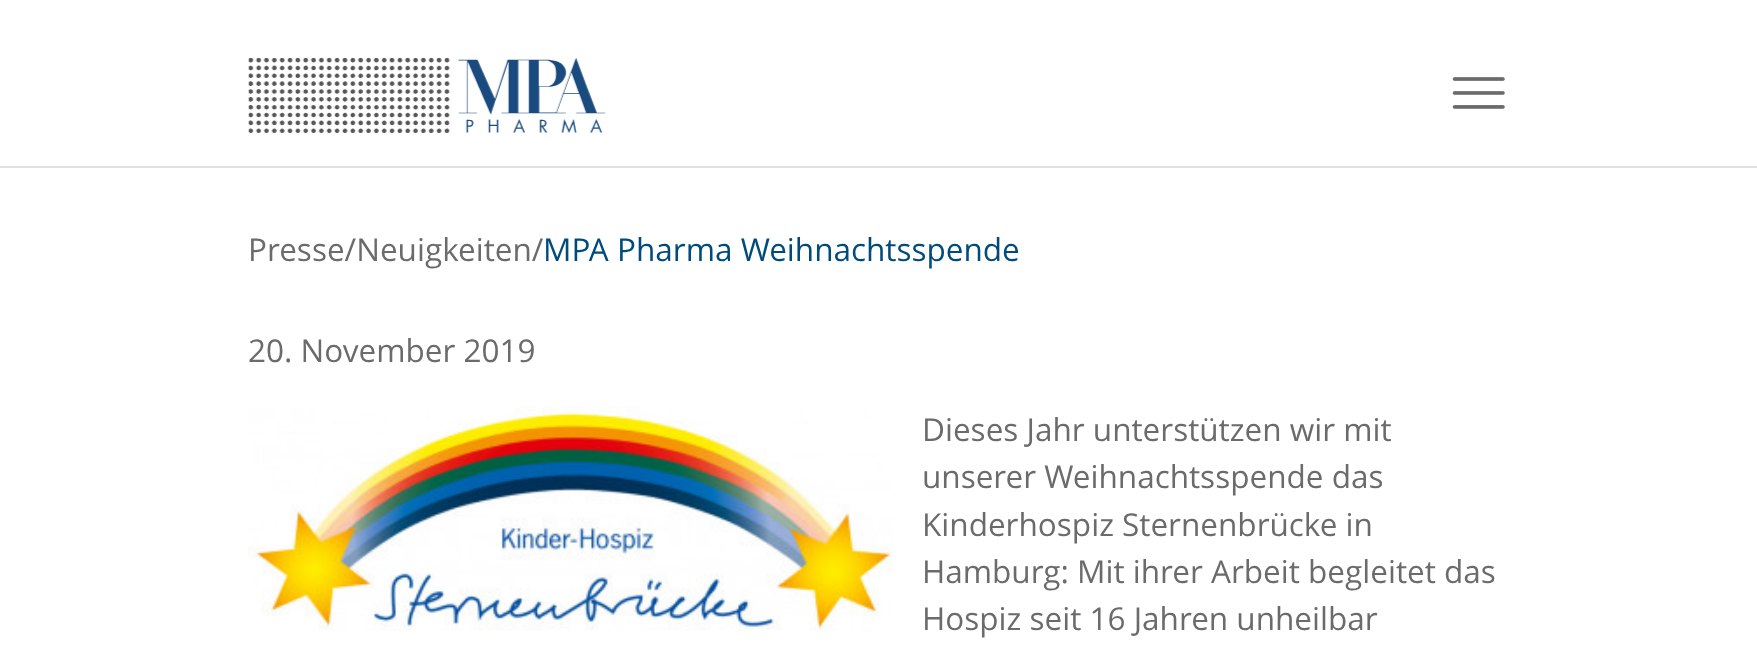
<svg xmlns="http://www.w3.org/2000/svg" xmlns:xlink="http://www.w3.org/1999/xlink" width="1757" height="665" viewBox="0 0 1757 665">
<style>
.cls-1{font:31.5px Open Sans;fill:#6b6b6b}
.cls-2{font:31.5px Open Sans;fill:#004b7c}
</style>
<rect width="100%" height="100%" fill="#ffffff"/>
<rect fill="#e1e1e1" x="0" y="166" width="1757" height="2"/>
<image xlink:href="image0.png" x="248" y="57" width="358" height="76"/>
<image xlink:href="image1.png" x="1452" y="77" width="53" height="32"/>
<image xlink:href="image2.png" x="248" y="406" width="645" height="225"/>
<text class="cls-1" x="248" y="261">Presse/Neuigkeiten/</text>
<text class="cls-2" x="543" y="261">MPA Pharma Weihnachtsspende</text>
<text class="cls-1" x="248" y="362">20. November 2019</text>
<text class="cls-1"><tspan x="922" y="441">Dieses Jahr unterstützen wir mit</tspan><tspan x="922" y="488">unserer Weihnachtsspende das</tspan><tspan x="922" y="536">Kinderhospiz Sternenbrücke in</tspan><tspan x="922" y="583">Hamburg: Mit ihrer Arbeit begleitet das</tspan><tspan x="922" y="630">Hospiz seit 16 Jahren unheilbar</tspan></text>
</svg>
